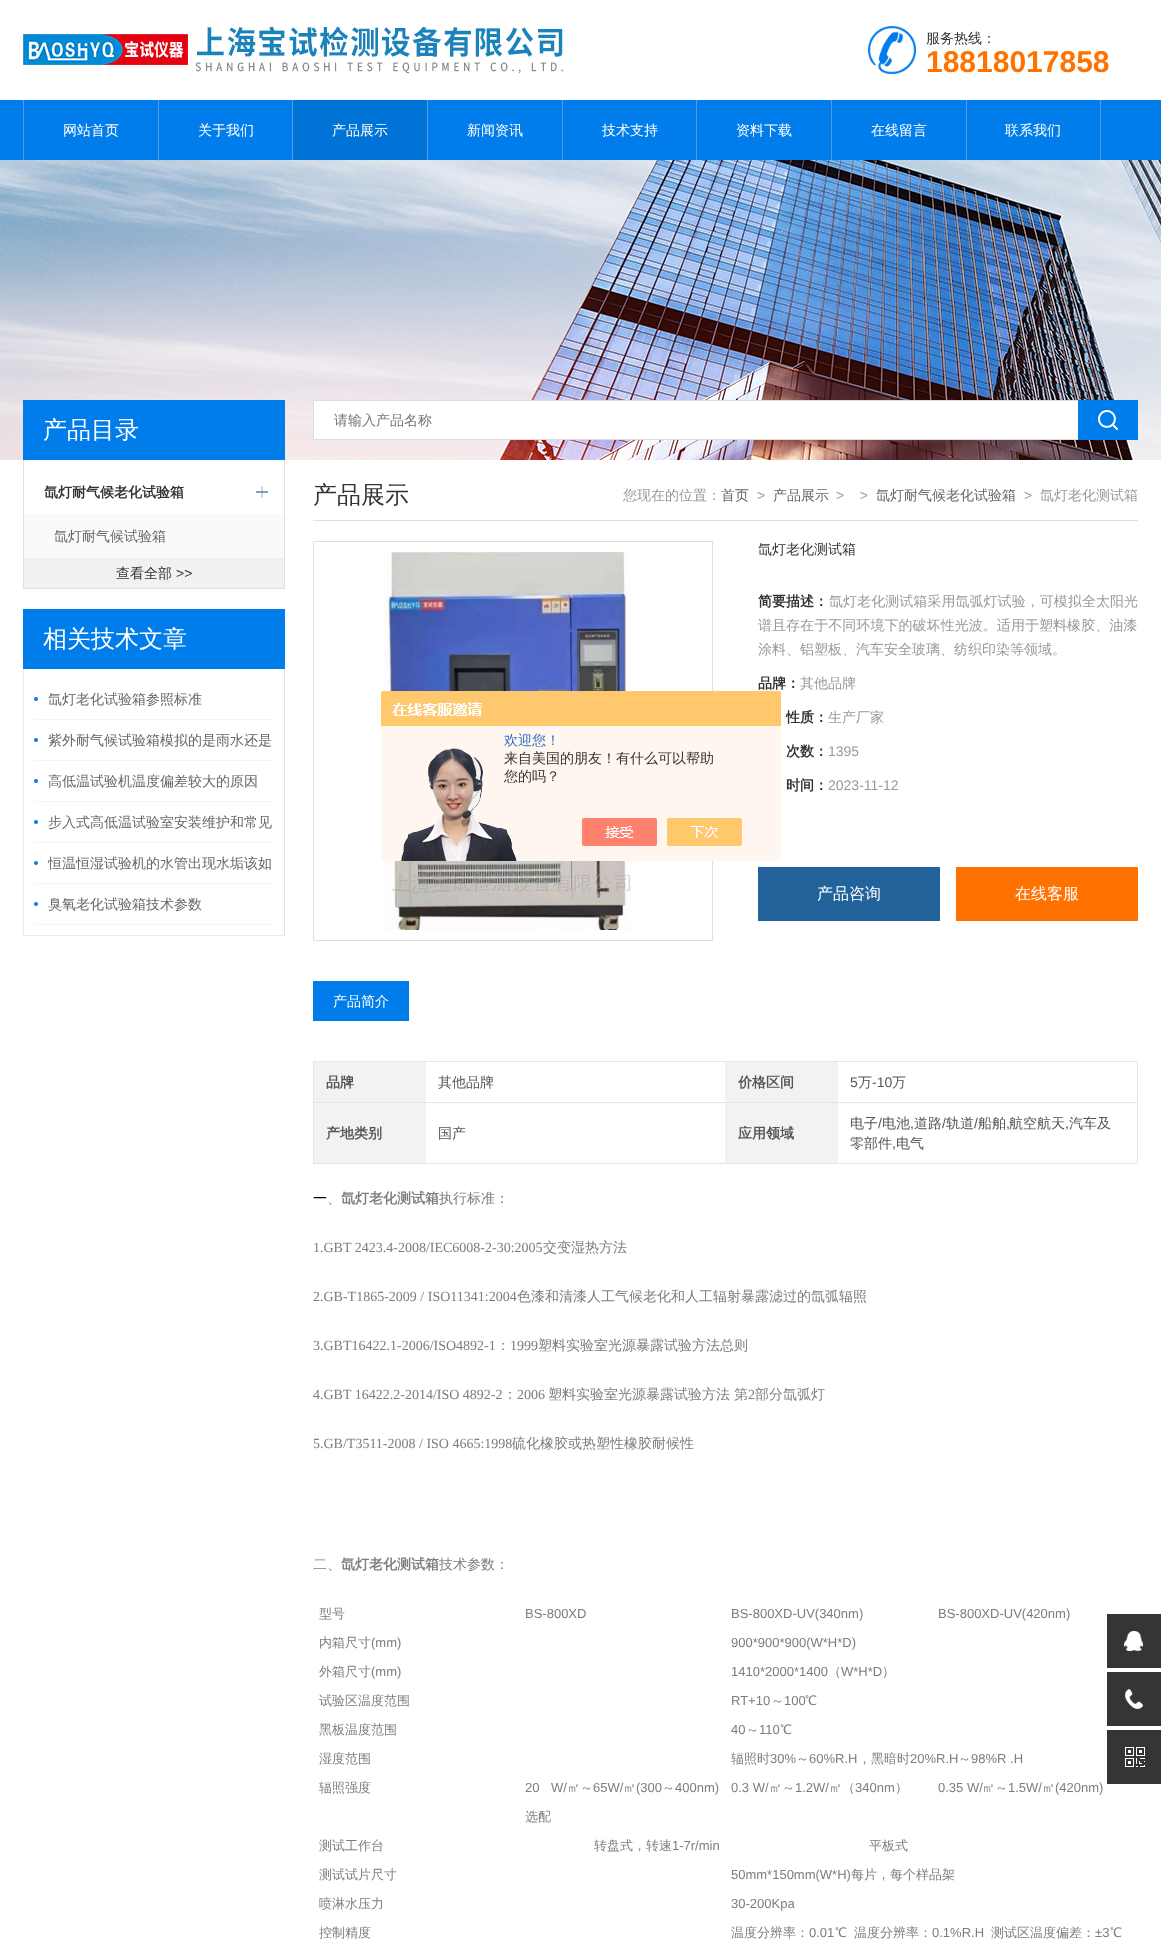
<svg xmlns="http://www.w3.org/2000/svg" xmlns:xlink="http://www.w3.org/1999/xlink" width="1161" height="1939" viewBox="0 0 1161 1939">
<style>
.cls-1{font:500 14px WenQuanYi Zen Hei;fill:#333333}
.cls-2{font:bold 30px Liberation Sans;fill:#ff7200}
.cls-3{font:500 14px WenQuanYi Zen Hei;fill:#ffffff}
.cls-4{font:500 24px WenQuanYi Zen Hei;fill:#ffffff}
.cls-5{font:bold 14px WenQuanYi Zen Hei;fill:#333333}
.cls-6{font:500 14px WenQuanYi Zen Hei;fill:#666666}
.cls-7{font:14px Liberation Sans;fill:#333333}
.cls-8{font:500 14px WenQuanYi Zen Hei;fill:#757575}
.cls-9{font:500 24px WenQuanYi Zen Hei;fill:#333333}
.cls-10{font:500 14px WenQuanYi Zen Hei;fill:#999999}
.cls-11{font:14px Liberation Sans;fill:#999999}
.cls-12{font:500 14px WenQuanYi Zen Hei;letter-spacing:0.05px;fill:#999999}
.cls-13{font:500 16px WenQuanYi Zen Hei;fill:#ffffff}
.cls-14{font:bold 14px WenQuanYi Zen Hei;fill:#555555}
.cls-15{font:500 14px WenQuanYi Zen Hei;fill:#555555}
.cls-16{font:14px Liberation Sans;fill:#555555}
.cls-17{font:500 14px WenQuanYi Zen Hei;fill:#000000}
.cls-18{font:bold 14px WenQuanYi Zen Hei;fill:#7d7d7d}
.cls-19{font:500 14px WenQuanYi Zen Hei;fill:#7d7d7d}
.cls-20{font:14px Liberation Serif;fill:#7d7d7d}
.cls-21{font:500 13px WenQuanYi Zen Hei;fill:#7d7d7d}
.cls-22{font:13px Liberation Sans;fill:#7d7d7d}
.cls-23{font:500 14px WenQuanYi Zen Hei;fill:#2e6ec6}
</style>
<rect width="100%" height="100%" fill="#ffffff"/>
<image xlink:href="image0.png" x="23" y="24" width="540" height="50"/>
<image xlink:href="image1.png" x="868" y="26" width="48" height="48"/>
<rect fill="#007deb" x="0" y="100" width="1161" height="60"/>
<rect fill="#4f9de8" x="23" y="100" width="1" height="60"/>
<rect fill="#4f9de8" x="158" y="100" width="1" height="60"/>
<rect fill="#4f9de8" x="292" y="100" width="1" height="60"/>
<rect fill="#4f9de8" x="427" y="100" width="1" height="60"/>
<rect fill="#0073d6" x="293" y="100" width="134" height="60" rx="2"/>
<rect fill="#4f9de8" x="562" y="100" width="1" height="60"/>
<rect fill="#4f9de8" x="696" y="100" width="1" height="60"/>
<rect fill="#4f9de8" x="831" y="100" width="1" height="60"/>
<rect fill="#4f9de8" x="966" y="100" width="1" height="60"/>
<rect fill="#4f9de8" x="1100" y="100" width="1" height="60"/>
<image xlink:href="image2.png" x="0" y="160" width="1161" height="300"/>
<rect fill="#007deb" x="23" y="400" width="262" height="60"/>
<rect fill="#dfdfdf" x="284" y="460" width="1" height="129"/>
<rect fill="#dfdfdf" x="23" y="460" width="1" height="129"/>
<rect fill="#dfdfdf" x="24" y="588" width="260" height="1"/>
<image xlink:href="image3.png" x="256" y="486" width="12" height="12"/>
<rect fill="#1474cf" fill-opacity="0.5" x="256" y="491" width="12" height="2"/>
<rect fill="#fafafa" x="24" y="514" width="260" height="44"/>
<rect fill="#f1f1f1" x="24" y="558" width="260" height="30"/>
<rect fill="#007deb" x="23" y="609" width="262" height="60"/>
<rect fill="#dfdfdf" x="284" y="669" width="1" height="267"/>
<rect fill="#eaeaea" x="23" y="935" width="262" height="1"/>
<rect fill="#eaeaea" x="23" y="669" width="1" height="267"/>
<path fill="none" stroke="#eaeaea" stroke-dasharray="1 1" d="M34 719.5H274"/>
<circle fill="#007deb" cx="36" cy="699" r="2"/>
<path fill="none" stroke="#eaeaea" stroke-dasharray="1 1" d="M34 760.5H274"/>
<circle fill="#007deb" cx="36" cy="740" r="2"/>
<path fill="none" stroke="#eaeaea" stroke-dasharray="1 1" d="M34 801.5H274"/>
<circle fill="#007deb" cx="36" cy="781" r="2"/>
<path fill="none" stroke="#eaeaea" stroke-dasharray="1 1" d="M34 842.5H274"/>
<circle fill="#007deb" cx="36" cy="822" r="2"/>
<path fill="none" stroke="#eaeaea" stroke-dasharray="1 1" d="M34 883.5H274"/>
<circle fill="#007deb" cx="36" cy="863" r="2"/>
<path fill="none" stroke="#eaeaea" stroke-dasharray="1 1" d="M34 924.5H274"/>
<circle fill="#007deb" cx="36" cy="904" r="2"/>
<rect fill="#ffffff" x="314" y="401" width="764" height="38"/>
<rect fill="#dfdfdf" x="313" y="400" width="765" height="1"/>
<rect fill="#dfdfdf" x="313" y="439" width="765" height="1"/>
<rect fill="#dfdfdf" x="313" y="400" width="1" height="40"/>
<rect fill="#007deb" x="1078" y="400" width="60" height="40"/>
<image xlink:href="image4.png" x="1098" y="410" width="20" height="20"/>
<rect fill="#dfdfdf" x="313" y="520" width="825" height="1"/>
<rect fill="none" stroke="#dfdfdf" x="313.5" y="541.5" width="399" height="399"/>
<image xlink:href="image5.png" x="383" y="552" width="248" height="378"/>
<rect fill="#22639b" x="758" y="867" width="182" height="54"/>
<rect fill="#ff7200" x="956" y="867" width="182" height="54"/>
<rect fill="#007deb" x="313" y="981" width="96" height="40"/>
<rect fill="#e6e5e5" x="313" y="1061" width="825" height="1"/>
<rect fill="#e6e5e5" x="1137" y="1061" width="1" height="103"/>
<rect fill="#e6e5e5" x="313" y="1061" width="1" height="103"/>
<rect fill="#f2f2f2" x="314" y="1062" width="112" height="40"/>
<rect fill="#f2f2f2" x="725" y="1062" width="113" height="40"/>
<rect fill="#e6e5e5" x="313" y="1102" width="825" height="1"/>
<rect fill="#f2f2f2" x="314" y="1103" width="112" height="60"/>
<rect fill="#f2f2f2" x="725" y="1103" width="113" height="60"/>
<rect fill="#e6e5e5" x="313" y="1163" width="825" height="1"/>
<image xlink:href="image6.png" x="381" y="691" width="400" height="170"/>
<rect fill="#353535" x="1107" y="1614" width="54" height="54"/>
<image xlink:href="image7.png" x="1124" y="1631" width="19" height="20"/>
<rect fill="#353535" x="1107" y="1672" width="54" height="54"/>
<image xlink:href="image8.png" x="1125" y="1689" width="18" height="20"/>
<rect fill="#353535" x="1107" y="1730" width="54" height="54"/>
<image xlink:href="image9.png" x="1125" y="1747" width="20" height="20"/>
<text class="cls-1" x="926" y="43">服务热线：</text>
<text class="cls-2" x="926" y="72">18818017858</text>
<text class="cls-3" x="63" y="135">网站首页</text>
<text class="cls-3" x="198" y="135">关于我们</text>
<text class="cls-3" x="332" y="135">产品展示</text>
<text class="cls-3" x="467" y="135">新闻资讯</text>
<text class="cls-3" x="602" y="135">技术支持</text>
<text class="cls-3" x="736" y="135">资料下载</text>
<text class="cls-3" x="871" y="135">在线留言</text>
<text class="cls-3" x="1005" y="135">联系我们</text>
<text class="cls-4" x="43" y="438">产品目录</text>
<text class="cls-5" x="44" y="497">氙灯耐气候老化试验箱</text>
<text class="cls-6" x="54" y="541">氙灯耐气候试验箱</text>
<text class="cls-1" x="116" y="578">查看全部</text>
<text class="cls-7" x="176" y="578">&gt;&gt;</text>
<text class="cls-4" x="43" y="647">相关技术文章</text>
<text class="cls-6" x="48" y="704">氙灯老化试验箱参照标准</text>
<text class="cls-6" x="48" y="745">紫外耐气候试验箱模拟的是雨水还是</text>
<text class="cls-6" x="48" y="786">高低温试验机温度偏差较大的原因</text>
<text class="cls-6" x="48" y="827">步入式高低温试验室安装维护和常见</text>
<text class="cls-6" x="48" y="868">恒温恒湿试验机的水管出现水垢该如</text>
<text class="cls-6" x="48" y="909">臭氧老化试验箱技术参数</text>
<text class="cls-8" x="334" y="425">请输入产品名称</text>
<text class="cls-9" x="313" y="503">产品展示</text>
<text class="cls-10" x="623" y="500">您现在的位置：</text>
<text class="cls-6" x="721" y="500">首页</text>
<text class="cls-11" x="757" y="500">&gt;</text>
<text class="cls-6" x="773" y="500">产品展示</text>
<text class="cls-11" xml:space="preserve" x="836" y="500">&gt;    &gt;</text>
<text class="cls-6" x="876" y="500">氙灯耐气候老化试验箱</text>
<text class="cls-11" x="1024" y="500">&gt;</text>
<text class="cls-10" x="1040" y="500">氙灯老化测试箱</text>
<text class="cls-1" x="758" y="554">氙灯老化测试箱</text>
<text class="cls-5" x="758" y="606">简要描述：</text>
<text class="cls-12" x="829" y="606">氙灯老化测试箱采用氙弧灯试验，可模拟全太阳光</text>
<text class="cls-12" x="758" y="630">谱且存在于不同环境下的破坏性光波。适用于塑料橡胶、油漆</text>
<text class="cls-10" x="758" y="654">涂料、铝塑板、汽车安全玻璃、纺织印染等领域。</text>
<text class="cls-5" x="758" y="688">品牌：</text>
<text class="cls-10" x="800" y="688">其他品牌</text>
<text class="cls-5" x="786" y="722">性质：</text>
<text class="cls-10" x="828" y="722">生产厂家</text>
<text class="cls-5" x="786" y="756">次数：</text>
<text class="cls-11" x="828" y="756">1395</text>
<text class="cls-5" x="786" y="790">时间：</text>
<text class="cls-11" x="828" y="790">2023-11-12</text>
<text class="cls-13" x="817" y="899">产品咨询</text>
<text class="cls-13" x="1015" y="899">在线客服</text>
<text class="cls-3" x="333" y="1006">产品简介</text>
<text class="cls-14" x="326" y="1087">品牌</text>
<text class="cls-15" x="438" y="1087">其他品牌</text>
<text class="cls-14" x="738" y="1087">价格区间</text>
<text class="cls-16" x="850" y="1087">5</text>
<text class="cls-15" x="858" y="1087">万</text>
<text class="cls-16" x="872" y="1087">-10</text>
<text class="cls-15" x="892" y="1087">万</text>
<text class="cls-14" x="326" y="1138">产地类别</text>
<text class="cls-15" x="438" y="1138">国产</text>
<text class="cls-14" x="738" y="1138">应用领域</text>
<text class="cls-15" x="850" y="1128">电子</text>
<text class="cls-16" x="878" y="1128">/</text>
<text class="cls-15" x="882" y="1128">电池</text>
<text class="cls-16" x="910" y="1128">,</text>
<text class="cls-15" x="914" y="1128">道路</text>
<text class="cls-16" x="942" y="1128">/</text>
<text class="cls-15" x="946" y="1128">轨道</text>
<text class="cls-16" x="974" y="1128">/</text>
<text class="cls-15" x="978" y="1128">船舶</text>
<text class="cls-16" x="1006" y="1128">,</text>
<text class="cls-15" x="1009" y="1128">航空航天</text>
<text class="cls-16" x="1065" y="1128">,</text>
<text class="cls-15" x="1069" y="1128">汽车及</text>
<text class="cls-15" x="850" y="1148">零部件</text>
<text class="cls-16" x="892" y="1148">,</text>
<text class="cls-15" x="896" y="1148">电气</text>
<text class="cls-17" x="313" y="1203">一</text>
<text class="cls-18" x="341" y="1203">氙灯老化测试箱</text>
<text class="cls-19" x="439" y="1203">执行标准：</text>
<text class="cls-19" x="327" y="1203">、</text>
<text class="cls-20" x="313" y="1252">1.GBT 2423.4-2008/IEC6008-2-30:2005</text>
<text class="cls-19" x="543" y="1252">交变湿热方法</text>
<text class="cls-20" x="313" y="1301">2.GB-T1865-2009 / ISO11341:2004</text>
<text class="cls-19" x="517" y="1301">色漆和清漆人工气候老化和人工辐射暴露滤过的氙弧辐照</text>
<text class="cls-20" x="313" y="1350">3.GBT16422.1-2006/ISO4892-1</text>
<text class="cls-19" x="496" y="1350">：</text>
<text class="cls-20" x="510" y="1350">1999</text>
<text class="cls-19" x="538" y="1350">塑料实验室光源暴露试验方法总则</text>
<text class="cls-20" x="313" y="1399">4.GBT 16422.2-2014/ISO 4892-2</text>
<text class="cls-19" x="503" y="1399">：</text>
<text class="cls-20" x="517" y="1399">2006</text>
<text class="cls-19" x="548" y="1399">塑料实验室光源暴露试验方法</text>
<text class="cls-19" x="734" y="1399">第</text>
<text class="cls-20" x="748" y="1399">2</text>
<text class="cls-19" x="755" y="1399">部分氙弧灯</text>
<text class="cls-20" x="313" y="1448">5.GB/T3511-2008 / ISO 4665:1998</text>
<text class="cls-19" x="512" y="1448">硫化橡胶或热塑性橡胶耐候性</text>
<text class="cls-19" x="313" y="1569">二、</text>
<text class="cls-18" x="341" y="1569">氙灯老化测试箱</text>
<text class="cls-19" x="439" y="1569">技术参数：</text>
<text class="cls-21" x="319" y="1618">型号</text>
<text class="cls-22" x="525" y="1618">BS-800XD</text>
<text class="cls-22" x="731" y="1618">BS-800XD-UV(340nm)</text>
<text class="cls-22" x="938" y="1618">BS-800XD-UV(420nm)</text>
<text class="cls-21" x="319" y="1647">内箱尺寸</text>
<text class="cls-22" x="371" y="1647">(mm)</text>
<text class="cls-22" x="731" y="1647">900*900*900(W*H*D)</text>
<text class="cls-21" x="319" y="1676">外箱尺寸</text>
<text class="cls-22" x="371" y="1676">(mm)</text>
<text class="cls-22" x="731" y="1676">1410*2000*1400</text>
<text class="cls-21" x="828" y="1676">（</text>
<text class="cls-22" x="841" y="1676">W*H*D</text>
<text class="cls-21" x="882" y="1676">）</text>
<text class="cls-21" x="319" y="1705">试验区温度范围</text>
<text class="cls-22" x="731" y="1705">RT+10</text>
<text class="cls-21" x="771" y="1705">～</text>
<text class="cls-22" x="784" y="1705">100</text>
<text class="cls-21" x="805" y="1705">℃</text>
<text class="cls-21" x="319" y="1734">黑板温度范围</text>
<text class="cls-22" x="731" y="1734">40</text>
<text class="cls-21" x="746" y="1734">～</text>
<text class="cls-22" x="759" y="1734">110</text>
<text class="cls-21" x="780" y="1734">℃</text>
<text class="cls-21" x="319" y="1763">湿度范围</text>
<text class="cls-21" x="731" y="1763">辐照时</text>
<text class="cls-22" x="770" y="1763">30%</text>
<text class="cls-21" x="796" y="1763">～</text>
<text class="cls-22" x="809" y="1763">60%R.H</text>
<text class="cls-21" x="858" y="1763">，黑暗时</text>
<text class="cls-22" x="910" y="1763">20%R.H</text>
<text class="cls-21" x="958" y="1763">～</text>
<text class="cls-22" x="971" y="1763">98%R .H</text>
<text class="cls-21" x="319" y="1792">辐照强度</text>
<text class="cls-22" x="525" y="1792" word-spacing="8">20 W/</text>
<text class="cls-21" x="567" y="1792">㎡～</text>
<text class="cls-22" x="593" y="1792">65W/</text>
<text class="cls-21" x="623" y="1792">㎡</text>
<text class="cls-22" x="636" y="1792">(300</text>
<text class="cls-21" x="662" y="1792">～</text>
<text class="cls-22" x="675" y="1792">400nm)</text>
<text class="cls-21" x="525" y="1821">选配</text>
<text class="cls-22" x="731" y="1792">0.3 W/</text>
<text class="cls-21" x="769" y="1792">㎡～</text>
<text class="cls-22" x="795" y="1792">1.2W/</text>
<text class="cls-21" x="829" y="1792">㎡（</text>
<text class="cls-22" x="855" y="1792">340nm</text>
<text class="cls-21" x="895" y="1792">）</text>
<text class="cls-22" x="938" y="1792">0.35 W/</text>
<text class="cls-21" x="982" y="1792">㎡～</text>
<text class="cls-22" x="1008" y="1792">1.5W/</text>
<text class="cls-21" x="1042" y="1792">㎡</text>
<text class="cls-22" x="1055" y="1792">(420nm)</text>
<text class="cls-21" x="319" y="1850">测试工作台</text>
<text class="cls-21" x="594" y="1850">转盘式，转速</text>
<text class="cls-22" x="672" y="1850">1-7r/min</text>
<text class="cls-21" x="869" y="1850">平板式</text>
<text class="cls-21" x="319" y="1879">测试试片尺寸</text>
<text class="cls-22" x="731" y="1879">50mm*150mm(W*H)</text>
<text class="cls-21" x="851" y="1879">每片，每个样品架</text>
<text class="cls-21" x="319" y="1908">喷淋水压力</text>
<text class="cls-22" x="731" y="1908">30-200Kpa</text>
<text class="cls-21" x="319" y="1937">控制精度</text>
<text class="cls-21" x="731" y="1937">温度分辨率：</text>
<text class="cls-22" x="809" y="1937">0.01</text>
<text class="cls-21" x="835" y="1937">℃</text>
<text class="cls-21" x="854" y="1937">温度分辨率：</text>
<text class="cls-22" x="932" y="1937">0.1%R.H</text>
<text class="cls-21" x="991" y="1937">测试区温度偏差：</text>
<text class="cls-22" x="1095" y="1937">±3</text>
<text class="cls-21" x="1110" y="1937">℃</text>
<text class="cls-23" x="504" y="745">欢迎您！</text>
<text class="cls-1"><tspan x="504" y="763">来自美国的朋友！有什么可以帮助</tspan><tspan x="504" y="781">您的吗？</tspan></text>
</svg>
